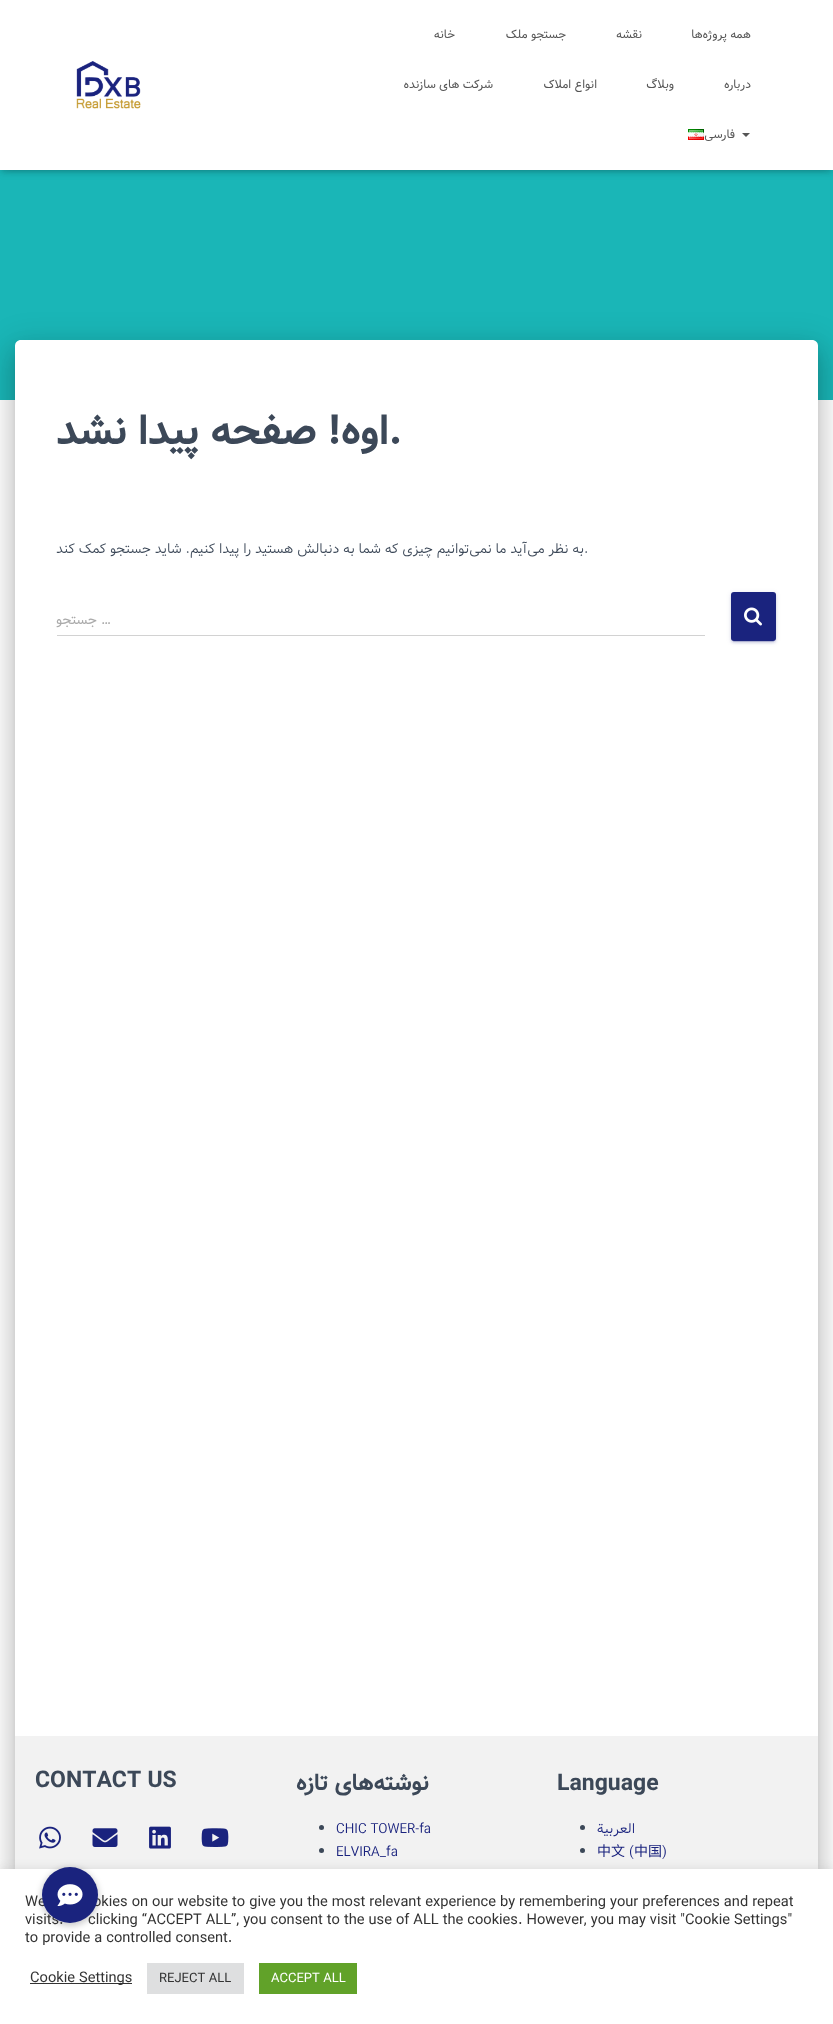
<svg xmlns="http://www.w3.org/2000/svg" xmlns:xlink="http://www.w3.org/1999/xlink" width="833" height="2024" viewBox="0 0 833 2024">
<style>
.cls-1{font:12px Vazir;direction:rtl;fill:#555555}
.cls-2{font:bold 42px Vazir;direction:rtl;fill:#3c4858}
.cls-3{font:bold 42px Vazir;fill:#3c4858}
.cls-4{font:300 14px Vazir;direction:rtl;fill:#3c4858}
.cls-5{font:300 14px Vazir;fill:#3c4858}
.cls-6{font:14px Vazir;direction:rtl;fill:#aaaaaa}
.cls-7{font:14px Vazir;fill:#aaaaaa}
.cls-8{font:bold 23px Vazir;fill:#3c4858}
.cls-9{font:bold 23px Vazir;direction:rtl;fill:#3c4858}
.cls-10{font:300 14px Vazir;fill:#1a237e}
.cls-11{font:300 14px Vazir;direction:rtl;fill:#1a237e}
.cls-12{font:14px Noto Sans CJK SC;fill:#1a237e}
.cls-13{font:14.65px Vazir;fill:#333333}
.cls-14{font:13px Vazir;fill:#333333}
.cls-15{font:13px Vazir;fill:#ffffff}
</style>
<rect width="100%" height="100%" fill="#ffffff"/>
<rect fill="#1ab6b7" x="0" y="170" width="833" height="230"/>
<rect fill="#000000" fill-opacity="0.1" filter="blur(2.5px)" x="2" y="6" width="829" height="166"/>
<rect fill="#000000" fill-opacity="0.12" filter="blur(5px)" x="0" y="1" width="833" height="170"/>
<rect fill="#000000" fill-opacity="0.42" filter="blur(5px)" x="6" y="7" width="821" height="158"/>
<rect fill="#ffffff" x="0" y="0" width="833" height="170"/>
<image xlink:href="image0.png" x="76" y="61" width="65" height="48"/>
<image xlink:href="image1.png" x="688" y="129" width="16" height="11"/>
<path fill="#555555" d="M742 133H750L746 137Z"/>
<rect fill="#000000" fill-opacity="0.2" filter="blur(5px)" x="20" y="353" width="793" height="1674" rx="1"/>
<rect fill="#000000" fill-opacity="0.12" filter="blur(15px)" x="10" y="341" width="813" height="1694" rx="11"/>
<rect fill="#000000" fill-opacity="0.14" filter="blur(12px)" x="13" y="354" width="807" height="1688" rx="8"/>
<path fill="#ffffff" d="M21 340H812C815.5 340 818 342.5 818 346V2024H15V346C15 342.5 17.5 340 21 340Z"/>
<rect fill="#d2d2d2" x="57" y="635" width="648" height="1"/>
<rect fill="#1a237e" fill-opacity="0.12" filter="blur(2.5px)" x="731" y="593" width="45" height="49" rx="3"/>
<rect fill="#1a237e" fill-opacity="0.2" filter="blur(0.5px)" x="733" y="597" width="41" height="45" rx="1"/>
<rect fill="#1a237e" fill-opacity="0.14" filter="blur(1px)" x="731" y="594" width="45" height="49" rx="3"/>
<rect fill="#1a237e" x="731" y="592" width="45" height="49" rx="3"/>
<image xlink:href="image2.png" x="744" y="607" width="18" height="19"/>
<rect fill="#f2f2f2" x="15" y="1736" width="803" height="133"/>
<image xlink:href="image3.png" x="39" y="1826" width="22" height="23"/>
<image xlink:href="image4.png" x="92" y="1828" width="26" height="19"/>
<image xlink:href="image5.png" x="149" y="1826" width="22" height="23"/>
<image xlink:href="image6.png" x="201" y="1828" width="28" height="19"/>
<circle fill="#3c4858" cx="321.5" cy="1827.5" r="2.5"/>
<circle fill="#3c4858" cx="321.5" cy="1850.5" r="2.5"/>
<circle fill="#3c4858" cx="582.5" cy="1827.5" r="2.5"/>
<circle fill="#3c4858" cx="582.5" cy="1850.5" r="2.5"/>
<rect fill="#acabab" fill-opacity="0.3" filter="blur(5px)" x="0" y="1868" width="833" height="155"/>
<rect fill="#ffffff" x="0" y="1869" width="833" height="155"/>
<rect fill="#000000" fill-opacity="0.2" filter="blur(3px)" x="41" y="1868" width="58" height="58" rx="29"/>
<rect fill="#333333" x="30" y="1983" width="102" height="1"/>
<rect fill="#dedfe0" x="147" y="1963" width="97" height="31"/>
<rect fill="#61a229" x="259" y="1963" width="98" height="31"/>
<text class="cls-1" x="455" y="38">خانه</text>
<text class="cls-1" x="566" y="38">جستجو ملک</text>
<text class="cls-1" x="642" y="38">نقشه</text>
<text class="cls-1" x="751" y="38">همه پروژه‌ها</text>
<text class="cls-1" x="493" y="88">شرکت های سازنده</text>
<text class="cls-1" x="597" y="88">انواع املاک</text>
<text class="cls-1" x="674" y="88">وبلاگ</text>
<text class="cls-1" x="751" y="88">درباره</text>
<text class="cls-1" x="735" y="138">فارسی</text>
<text class="cls-2" x="389" y="444">اوه! صفحه پیدا نشد</text>
<text class="cls-3" x="389" y="444">.</text>
<text class="cls-4" x="584" y="553">به نظر می‌آید ما نمی‌توانیم چیزی که شما به دنبالش هستید را پیدا کنیم. شاید جستجو کمک کند</text>
<text class="cls-5" x="584" y="553">.</text>
<text class="cls-6" x="97" y="624">جستجو</text>
<text class="cls-7" x="101" y="624">…</text>
<text class="cls-8" x="35" y="1787">CONTACT US</text>
<text class="cls-9" x="429" y="1790">نوشته‌های تازه</text>
<text class="cls-10"><tspan x="336" y="1833">CHIC TOWER-fa</tspan><tspan x="336" y="1856">ELVIRA_fa</tspan></text>
<text class="cls-8" x="557" y="1790">Language</text>
<text class="cls-11" x="635" y="1833">العربية</text>
<text class="cls-12" x="597" y="1856">中文</text>
<text class="cls-10" x="629" y="1856">(</text>
<text class="cls-12" x="634" y="1856">中国</text>
<text class="cls-10" x="662" y="1856">)</text>
<text class="cls-13" x="25" y="1906">We</text>
<text class="cls-13" x="93" y="1906">okies on our website to give you the most relevant experience by remembering your preferences and repeat</text>
<text class="cls-13" x="25" y="1924">visits.</text>
<text class="cls-13" x="88" y="1924">clicking “ACCEPT ALL”, you consent to the use of ALL the cookies. However, you may visit "Cookie Settings"</text>
<circle fill="#1a237e" cx="70" cy="1895" r="28"/>
<image xlink:href="image7.png" x="57" y="1884" width="26" height="22"/>
<text class="cls-13" x="25" y="1942">to provide a controlled consent.</text>
<text class="cls-13" x="30" y="1982">Cookie Settings</text>
<text class="cls-14" x="159" y="1982">REJECT ALL</text>
<text class="cls-15" x="271" y="1982">ACCEPT ALL</text>
</svg>
